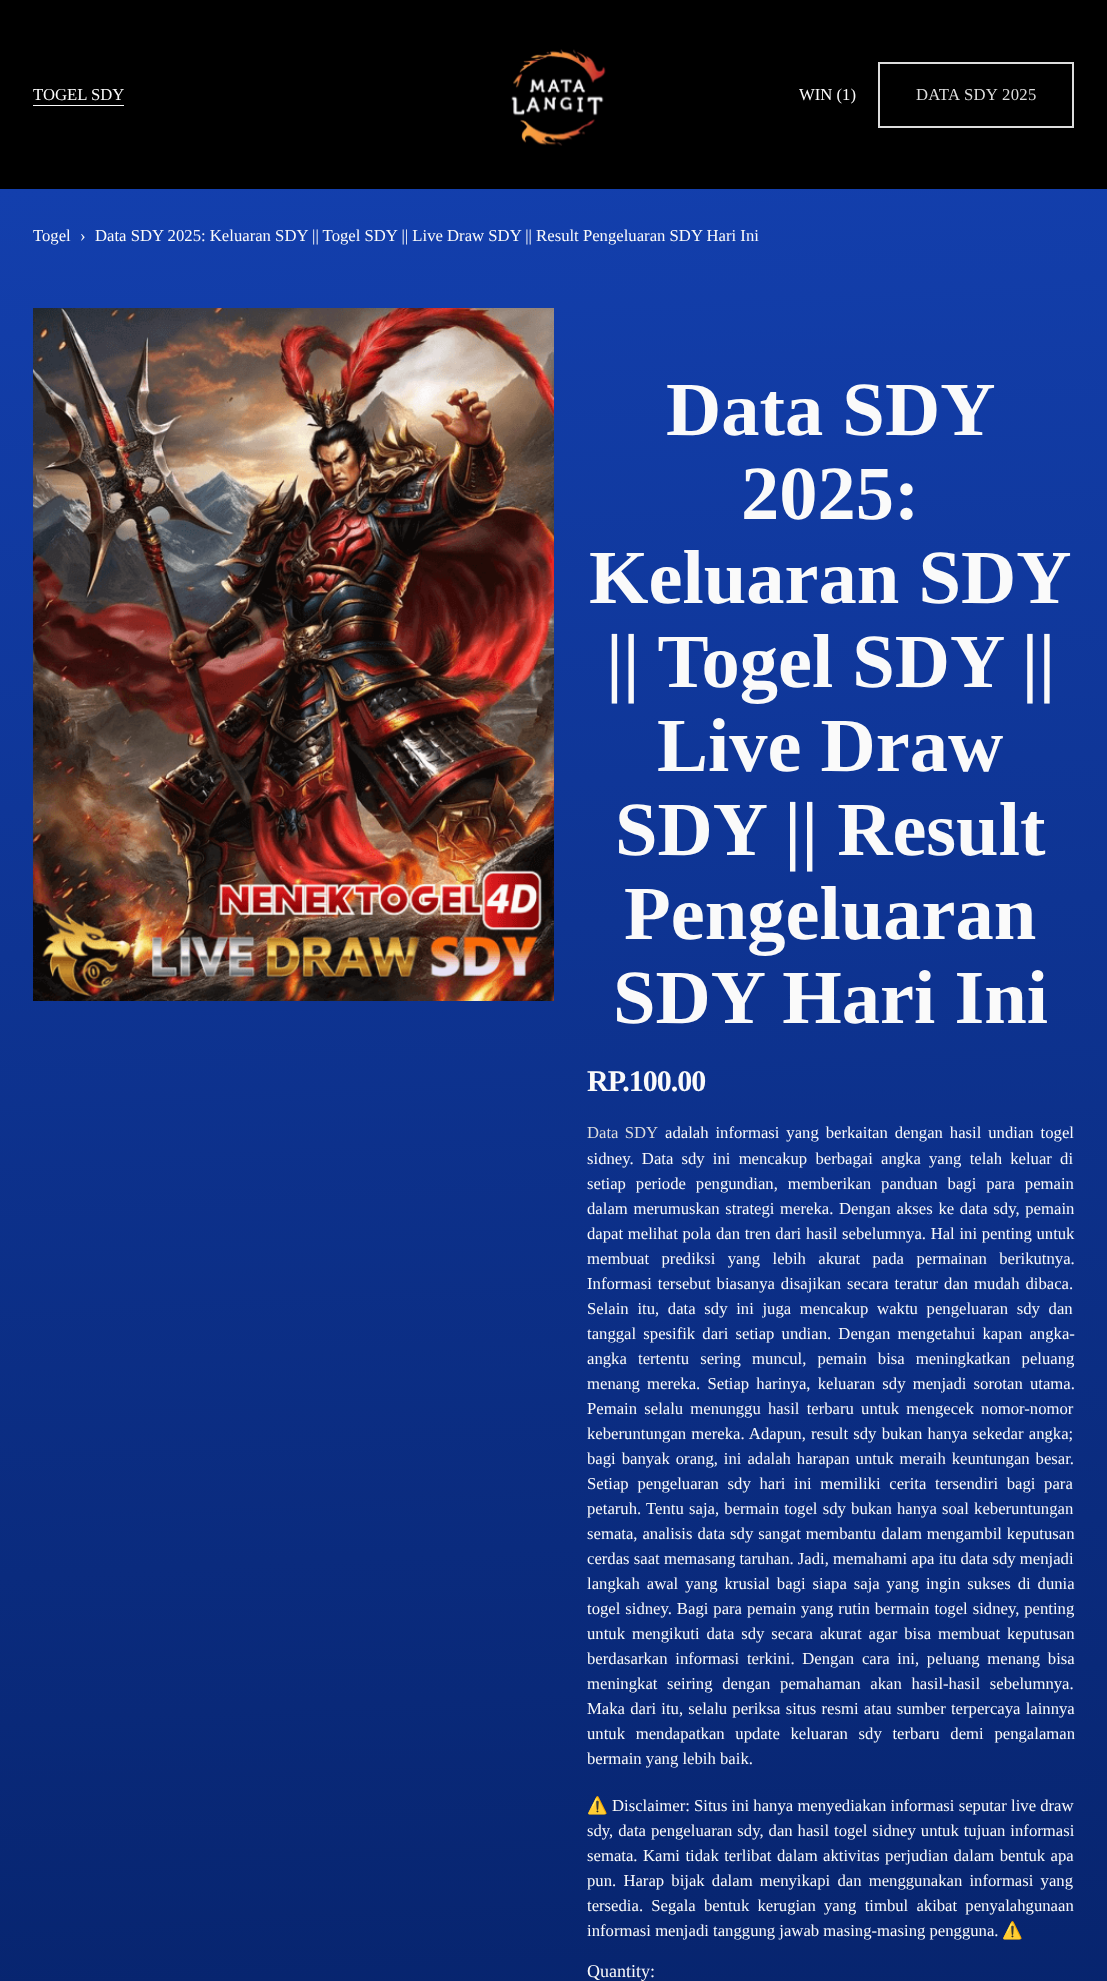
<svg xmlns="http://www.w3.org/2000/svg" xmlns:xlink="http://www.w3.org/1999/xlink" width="1107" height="1981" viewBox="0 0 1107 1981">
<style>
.cls-1{font:16.7px Liberation Serif;fill:#fafafa}
.cls-2{font:16.7px Liberation Serif;letter-spacing:0.3px;fill:#dcdcdc}
.cls-3{font:bold 76.5px Liberation Serif;fill:#fafafa}
.cls-4{font:bold 30px Liberation Serif;letter-spacing:-1px;fill:#fafafa}
.cls-5{font:16.7px Liberation Serif;fill:#dcdcdc}
.cls-6{font:16.7px Noto Color Emoji;fill:#fafafa}
.cls-7{font:18px Liberation Serif;fill:#fafafa}
</style>
<defs>
<linearGradient id="g1" gradientUnits="userSpaceOnUse" x1="497" y1="163" x2="610" y2="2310"><stop offset="0" stop-color="#133fad"/><stop offset="1" stop-color="#052064"/></linearGradient>
</defs>
<rect width="100%" height="100%" fill="#000000"/>
<rect fill="#fafafa" x="33" y="105" width="91" height="1"/>
<image xlink:href="image0.png" x="511" y="49" width="95" height="97"/>
<rect fill="none" stroke="#dcdcdc" stroke-width="2" x="879" y="63" width="194" height="64"/>
<rect fill="url(#g1)" x="0" y="189" width="1107" height="1792"/>
<image xlink:href="image1.png" x="33" y="308" width="521" height="693"/>
<text class="cls-1" x="33" y="100">TOGEL SDY</text>
<text class="cls-1" x="799" y="100">WIN (1)</text>
<text class="cls-2" x="916" y="100">DATA SDY 2025</text>
<text class="cls-1" x="33" y="241">Togel</text>
<text class="cls-1" x="80" y="241">›</text>
<text class="cls-1" x="95" y="241">Data SDY 2025: Keluaran SDY || Togel SDY || Live Draw SDY || Result Pengeluaran SDY Hari Ini</text>
<text class="cls-3" x="666" y="435">Data SDY</text>
<text class="cls-3" x="741" y="519">2025:</text>
<text class="cls-3" x="589" y="603">Keluaran SDY</text>
<text class="cls-3" x="606" y="687">|| Togel SDY ||</text>
<text class="cls-3" x="657" y="771">Live Draw</text>
<text class="cls-3" x="615" y="855">SDY || Result</text>
<text class="cls-3" x="624" y="939">Pengeluaran</text>
<text class="cls-3" x="613" y="1023">SDY Hari Ini</text>
<text class="cls-4" x="587" y="1091">RP.100.00</text>
<text class="cls-5" x="587" y="1138" word-spacing="2">Data SDY</text>
<text class="cls-1" x="665" y="1138" word-spacing="2.75">adalah informasi yang berkaitan dengan hasil undian togel</text>
<text class="cls-1"><tspan x="587" y="1164" word-spacing="4">sidney. Data sdy ini mencakup berbagai angka yang telah keluar di</tspan><tspan x="587" y="1189" word-spacing="5.75">setiap periode pengundian, memberikan panduan bagi para pemain</tspan><tspan x="587" y="1214" word-spacing="1.5">dalam merumuskan strategi mereka. Dengan akses ke data sdy, pemain</tspan><tspan x="587" y="1239" word-spacing="0.5">dapat melihat pola dan tren dari hasil sebelumnya. Hal ini penting untuk</tspan><tspan x="587" y="1264" word-spacing="8.25">membuat prediksi yang lebih akurat pada permainan berikutnya.</tspan><tspan x="587" y="1289" word-spacing="1.75">Informasi tersebut biasanya disajikan secara teratur dan mudah dibaca.</tspan><tspan x="587" y="1314" word-spacing="4.5">Selain itu, data sdy ini juga mencakup waktu pengeluaran sdy dan</tspan><tspan x="587" y="1339" word-spacing="3">tanggal spesifik dari setiap undian. Dengan mengetahui kapan angka-</tspan><tspan x="587" y="1364" word-spacing="7">angka tertentu sering muncul, pemain bisa meningkatkan peluang</tspan><tspan x="587" y="1389" word-spacing="3">menang mereka. Setiap harinya, keluaran sdy menjadi sorotan utama.</tspan><tspan x="587" y="1414" word-spacing="3">Pemain selalu menunggu hasil terbaru untuk mengecek nomor-nomor</tspan><tspan x="587" y="1439" word-spacing="1">keberuntungan mereka. Adapun, result sdy bukan hanya sekedar angka;</tspan><tspan x="587" y="1464" word-spacing="1.75">bagi banyak orang, ini adalah harapan untuk meraih keuntungan besar.</tspan><tspan x="587" y="1489" word-spacing="4.5">Setiap pengeluaran sdy hari ini memiliki cerita tersendiri bagi para</tspan><tspan x="587" y="1514" word-spacing="1">petaruh. Tentu saja, bermain togel sdy bukan hanya soal keberuntungan</tspan><tspan x="587" y="1539" word-spacing="0.75">semata, analisis data sdy sangat membantu dalam mengambil keputusan</tspan><tspan x="587" y="1564">cerdas saat memasang taruhan. Jadi, memahami apa itu data sdy menjadi</tspan><tspan x="587" y="1589" word-spacing="2.75">langkah awal yang krusial bagi siapa saja yang ingin sukses di dunia</tspan><tspan x="587" y="1614" word-spacing="0.75">togel sidney. Bagi para pemain yang rutin bermain togel sidney, penting</tspan><tspan x="587" y="1639" word-spacing="2.75">untuk mengikuti data sdy secara akurat agar bisa membuat keputusan</tspan><tspan x="587" y="1664" word-spacing="3.5">berdasarkan informasi terkini. Dengan cara ini, peluang menang bisa</tspan><tspan x="587" y="1689" word-spacing="5.5">meningkat seiring dengan pemahaman akan hasil-hasil sebelumnya.</tspan><tspan x="587" y="1714" word-spacing="1">Maka dari itu, selalu periksa situs resmi atau sumber terpercaya lainnya</tspan><tspan x="587" y="1739" word-spacing="6.5">untuk mendapatkan update keluaran sdy terbaru demi pengalaman</tspan><tspan x="587" y="1764">bermain yang lebih baik.</tspan></text>
<text class="cls-6" x="587" y="1811">⚠️</text>
<text class="cls-1" x="612" y="1811">Disclaimer: Situs ini hanya menyediakan informasi seputar live draw</text>
<text class="cls-1"><tspan x="587" y="1836" word-spacing="0.75">sdy, data pengeluaran sdy, dan hasil togel sidney untuk tujuan informasi</tspan><tspan x="587" y="1861" word-spacing="1.25">semata. Kami tidak terlibat dalam aktivitas perjudian dalam bentuk apa</tspan><tspan x="587" y="1886" word-spacing="3">pun. Harap bijak dalam menyikapi dan menggunakan informasi yang</tspan><tspan x="587" y="1911" word-spacing="4">tersedia. Segala bentuk kerugian yang timbul akibat penyalahgunaan</tspan><tspan x="587" y="1936">informasi menjadi tanggung jawab masing-masing pengguna.</tspan></text>
<text class="cls-6" x="1002" y="1936">⚠️</text>
<text class="cls-7" x="587" y="1977">Quantity:</text>
</svg>
